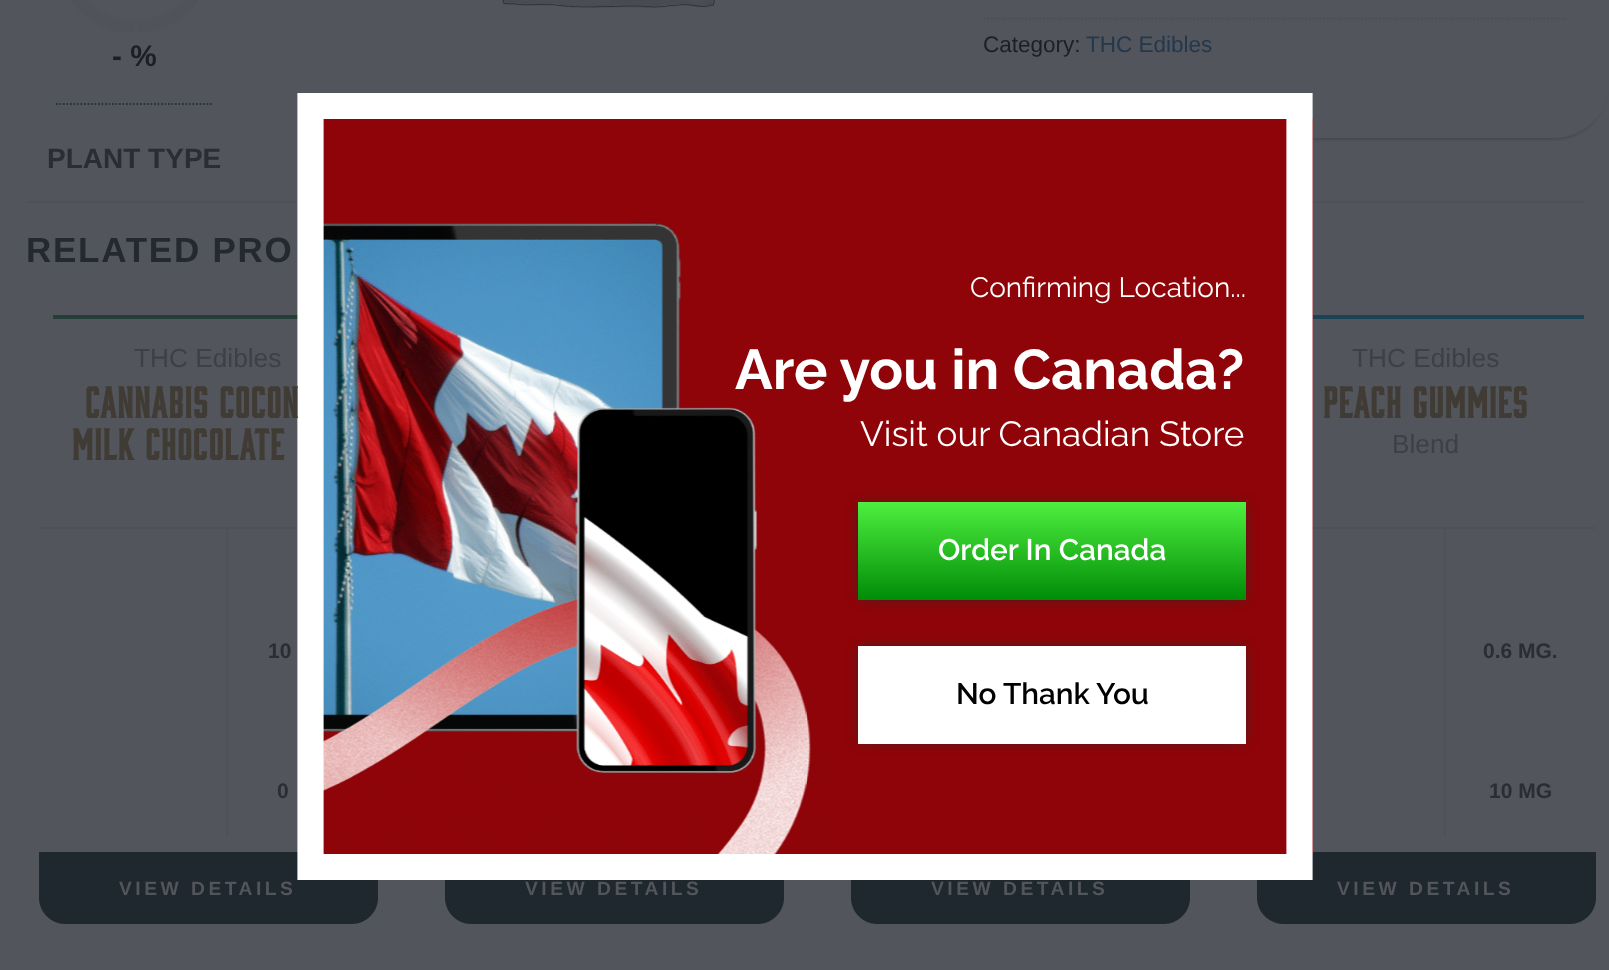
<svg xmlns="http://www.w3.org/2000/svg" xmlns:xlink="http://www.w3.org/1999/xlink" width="1609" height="970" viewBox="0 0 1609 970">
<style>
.cls-1{font:bold 29.75px Liberation Sans;fill:#1c2025}
.cls-2{font:bold 28px Liberation Sans;fill:#2a2d32}
.cls-3{font:22.5px Liberation Sans;fill:#1c2025}
.cls-4{font:22.5px Liberation Sans;fill:#23384d}
.cls-5{font:bold 35px Liberation Sans;letter-spacing:1.75px;fill:#242930}
.cls-6{font:26.25px Liberation Sans;fill:#3d4045}
.cls-7{font:bold 40.25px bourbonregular;letter-spacing:1.4px;fill:#403c35}
.cls-8{font:bold 21px Liberation Sans;fill:#2a2d32}
.cls-9{font:bold 19.25px Liberation Sans;letter-spacing:3.5px;fill:#52555b}
.cls-10{font:28px Raleway;fill:#ffffff}
.cls-11{font:bold 56px Raleway;fill:#ffffff}
.cls-12{font:35px Raleway;fill:#ffffff}
.cls-13{font:600 29.75px Raleway;fill:#ffffff}
.cls-14{font:600 29.75px Raleway;fill:#000000}
</style>
<defs>
<linearGradient id="g1" gradientUnits="userSpaceOnUse" x1="1052" y1="502" x2="1052" y2="600"><stop offset="0" stop-color="#4fef40"/><stop offset="1" stop-color="#008c07"/></linearGradient>
</defs>
<rect width="100%" height="100%" fill="#52555b"/>
<image xlink:href="image0.png" x="71" y="0" width="127" height="33"/>
<path fill="none" stroke="#26382f" stroke-width="1.8" stroke-dasharray="1.75 1.75" d="M56 104H212"/>
<image xlink:href="image1.png" x="304" y="0" width="600" height="93"/>
<rect fill="#1c2025" fill-opacity="0.2" filter="blur(1px)" x="943" y="-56" width="664" height="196" rx="53"/>
<rect fill="#52555b" x="940" y="-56" width="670" height="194" rx="56"/>
<path fill="none" stroke="#4b4e54" stroke-width="1.8" stroke-dasharray="1.75 1.75" d="M983.5 18.5H1566"/>
<rect fill="#4e5157" x="26" y="201" width="1558" height="2"/>
<rect fill="#233f37" x="53" y="315" width="245" height="4"/>
<rect fill="#4e5257" x="39" y="527" width="259" height="2"/>
<rect fill="#4e5257" x="226" y="529" width="2" height="306"/>
<path fill="#1f282f" d="M39 852V898C39 912 51 924 65 924H352C366 924 378 912 378 898V852Z"/>
<path fill="#1f282f" d="M445 852V898C445 912 457 924 471 924H758C772 924 784 912 784 898V852Z"/>
<path fill="#1f282f" d="M851 852V898C851 912 863 924 877 924H1164C1178 924 1190 912 1190 898V852Z"/>
<rect fill="#1c4354" x="1313" y="315" width="271" height="4"/>
<rect fill="#4e5257" x="1313" y="527" width="283" height="2"/>
<rect fill="#4e5257" x="1444" y="529" width="2" height="306"/>
<path fill="#1f282f" d="M1257 852V898C1257 912 1269 924 1283 924H1570C1584 924 1596 912 1596 898V852Z"/>
<image xlink:href="image2.png" x="323" y="119" width="990" height="735"/>
<path fill="none" stroke="#ffffff" stroke-width="26.2" d="M310.5 106H1299.5V867H310.5Z"/>
<rect fill="#2b2b2b" filter="blur(7px)" x="861" y="506" width="382" height="91"/>
<rect fill="url(#g1)" x="858" y="502" width="388" height="98"/>
<rect fill="#2b2b2b" filter="blur(7px)" x="861" y="649" width="382" height="91"/>
<rect fill="#ffffff" x="858" y="646" width="388" height="98"/>
<text class="cls-1" x="112" y="66">- %</text>
<text class="cls-2" x="47" y="168">PLANT TYPE</text>
<text class="cls-3" x="983" y="52">Category:</text>
<text class="cls-4" x="1086" y="52">THC Edibles</text>
<text class="cls-5" x="26" y="262">RELATED PRO</text>
<text class="cls-6" x="134" y="367">THC Edibles</text>
<text class="cls-7" x="85" y="418">CANNABIS COCON</text>
<text class="cls-7" x="72" y="460">MILK CHOCOLATE</text>
<text class="cls-8" x="268" y="658">10</text>
<text class="cls-8" x="277" y="798">0</text>
<text class="cls-9" x="119" y="895">VIEW DETAILS</text>
<text class="cls-9" x="525" y="895">VIEW DETAILS</text>
<text class="cls-9" x="931" y="895">VIEW DETAILS</text>
<text class="cls-6" x="1352" y="367">THC Edibles</text>
<text class="cls-7" x="1323" y="418">PEACH GUMMIES</text>
<text class="cls-6" x="1392" y="453">Blend</text>
<text class="cls-8" x="1483" y="658">0.6 MG.</text>
<text class="cls-8" x="1489" y="798">10 MG</text>
<text class="cls-9" x="1337" y="895">VIEW DETAILS</text>
<text class="cls-10" x="970" y="297">Confirming Location...</text>
<text class="cls-11" x="735" y="389">Are you in Canada?</text>
<text class="cls-12" x="860" y="446">Visit our Canadian Store</text>
<text class="cls-13" x="938" y="560">Order In Canada</text>
<text class="cls-14" x="956" y="704">No Thank You</text>
</svg>
